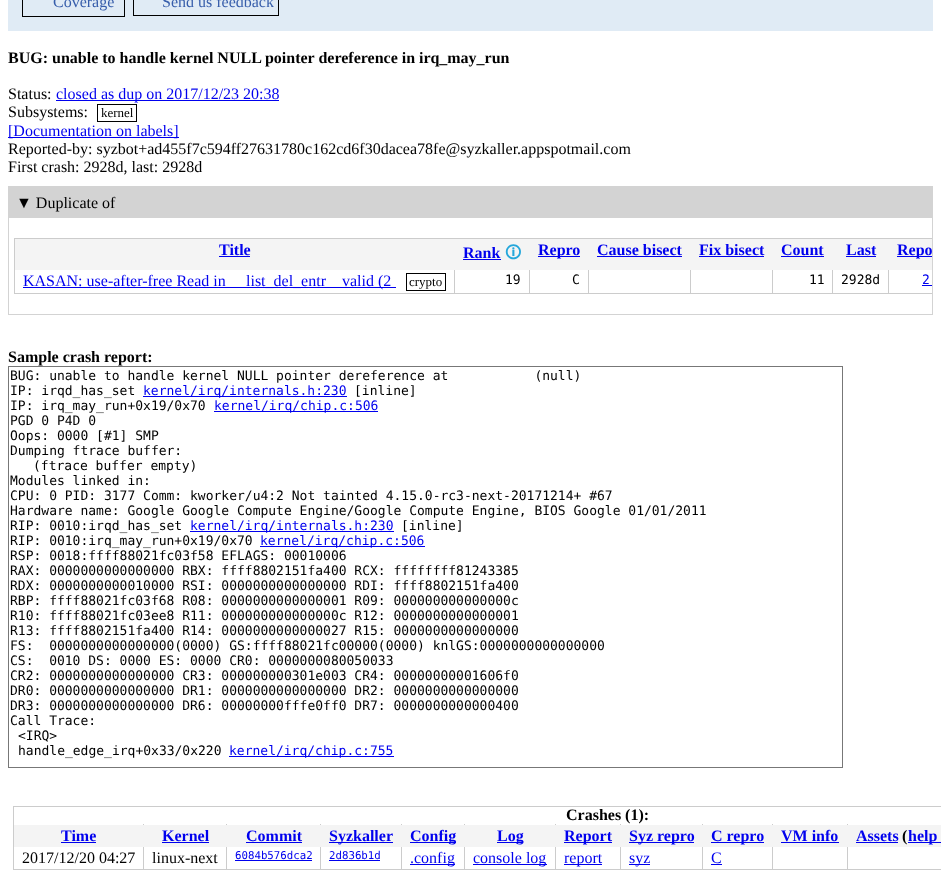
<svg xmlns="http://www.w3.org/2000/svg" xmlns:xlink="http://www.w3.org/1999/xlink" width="941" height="888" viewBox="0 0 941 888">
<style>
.cls-1{font:16px Liberation Serif;fill:#375eab}
.cls-2{font:bold 16px Liberation Serif;fill:#000000}
.cls-3{font:16px Liberation Serif;fill:#000000}
.cls-4{font:16px Liberation Serif;fill:#0000ee}
.cls-5{font:13px Liberation Serif;fill:#000000}
.cls-6{font:bold 16px Liberation Serif;fill:#0000ee}
.cls-7{font:bold 16px 'Noto Sans Symbols 2';fill:#25a7db}
.cls-8{font:13px DejaVu Sans Mono;fill:#000000}
.cls-9{font:13px DejaVu Sans Mono;fill:#0000ee}
.cls-10{font:10.75px DejaVu Sans Mono;fill:#0000ee}
</style>
<defs>
<clipPath id="clip1"><rect x="890" y="239" width="42" height="31"/></clipPath>
</defs>
<rect width="100%" height="100%" fill="#ffffff"/>
<rect fill="#e0ebf5" x="8" y="0" width="925" height="31"/>
<rect fill="none" stroke="#000000" x="22.5" y="-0.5" width="102" height="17"/>
<rect fill="none" stroke="#000000" x="133.5" y="-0.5" width="145" height="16"/>
<rect fill="#0000ee" x="56" y="100" width="223" height="1"/>
<rect fill="none" stroke="#000000" x="97.5" y="104.5" width="39" height="17"/>
<rect fill="#0000ee" x="8" y="137" width="171" height="1"/>
<rect fill="none" stroke="#d3d3d3" x="8.5" y="186.5" width="924" height="128"/>
<rect fill="#d3d3d3" x="9" y="187" width="923" height="31"/>
<rect fill="#cccccc" x="14" y="238" width="918" height="1"/>
<rect fill="#cccccc" x="14" y="293" width="918" height="1"/>
<rect fill="#cccccc" x="14" y="238" width="1" height="56"/>
<rect fill="#f4f4f4" x="15" y="239" width="917" height="31"/>
<rect fill="#0000ee" x="219" y="256" width="31" height="1"/>
<rect fill="#0000ee" x="463" y="259" width="38" height="1"/>
<rect fill="#0000ee" x="538" y="256" width="42" height="1"/>
<rect fill="#0000ee" x="597" y="256" width="85" height="1"/>
<rect fill="#0000ee" x="699" y="256" width="65" height="1"/>
<rect fill="#0000ee" x="781" y="256" width="43" height="1"/>
<rect fill="#0000ee" x="846" y="256" width="30" height="1"/>
<rect fill="#0000ee" x="897" y="256" width="35" height="1"/>
<rect fill="#0000ee" x="23" y="287" width="373" height="1"/>
<rect fill="none" stroke="#000000" x="406.5" y="273.5" width="39" height="17"/>
<rect fill="#cccccc" x="454" y="270" width="1" height="23"/>
<rect fill="#cccccc" x="529" y="270" width="1" height="23"/>
<rect fill="#cccccc" x="588" y="270" width="1" height="23"/>
<rect fill="#cccccc" x="690" y="270" width="1" height="23"/>
<rect fill="#cccccc" x="772" y="270" width="1" height="23"/>
<rect fill="#cccccc" x="832" y="270" width="1" height="23"/>
<rect fill="#cccccc" x="888" y="270" width="1" height="23"/>
<rect fill="#0000ee" x="922" y="285" width="10" height="1"/>
<rect fill="none" stroke="#777777" x="8.5" y="366.5" width="834" height="401"/>
<rect fill="#0000ee" x="143" y="396" width="204" height="1"/>
<rect fill="#0000ee" x="214" y="411" width="164" height="1"/>
<rect fill="#0000ee" x="190" y="531" width="204" height="1"/>
<rect fill="#0000ee" x="260" y="546" width="165" height="1"/>
<rect fill="#0000ee" x="229" y="756" width="165" height="1"/>
<rect fill="#cccccc" x="13" y="806" width="928" height="1"/>
<rect fill="#cccccc" x="13" y="869" width="928" height="1"/>
<rect fill="#cccccc" x="13" y="806" width="1" height="64"/>
<rect fill="#cccccc" x="143" y="824" width="1" height="45"/>
<rect fill="#cccccc" x="226" y="824" width="1" height="45"/>
<rect fill="#cccccc" x="320" y="824" width="1" height="45"/>
<rect fill="#cccccc" x="401" y="824" width="1" height="45"/>
<rect fill="#cccccc" x="464" y="824" width="1" height="45"/>
<rect fill="#cccccc" x="555" y="824" width="1" height="45"/>
<rect fill="#cccccc" x="620" y="824" width="1" height="45"/>
<rect fill="#cccccc" x="702" y="824" width="1" height="45"/>
<rect fill="#cccccc" x="772" y="824" width="1" height="45"/>
<rect fill="#cccccc" x="847" y="824" width="1" height="45"/>
<rect fill="#f4f4f4" x="14" y="825" width="927" height="22"/>
<rect fill="#0000ee" x="61" y="842" width="35" height="1"/>
<rect fill="#0000ee" x="162" y="842" width="47" height="1"/>
<rect fill="#0000ee" x="246" y="842" width="56" height="1"/>
<rect fill="#0000ee" x="329" y="842" width="64" height="1"/>
<rect fill="#0000ee" x="410" y="842" width="46" height="1"/>
<rect fill="#0000ee" x="497" y="842" width="26" height="1"/>
<rect fill="#0000ee" x="564" y="842" width="48" height="1"/>
<rect fill="#0000ee" x="629" y="842" width="65" height="1"/>
<rect fill="#0000ee" x="711" y="842" width="53" height="1"/>
<rect fill="#0000ee" x="781" y="842" width="58" height="1"/>
<rect fill="#0000ee" x="856" y="842" width="42" height="1"/>
<rect fill="#0000ee" x="908" y="842" width="33" height="1"/>
<rect fill="#0000ee" x="235" y="860" width="77" height="1"/>
<rect fill="#0000ee" x="329" y="860" width="51" height="1"/>
<rect fill="#0000ee" x="410" y="864" width="45" height="1"/>
<rect fill="#0000ee" x="473" y="864" width="74" height="1"/>
<rect fill="#0000ee" x="564" y="864" width="38" height="1"/>
<rect fill="#0000ee" x="629" y="864" width="21" height="1"/>
<rect fill="#0000ee" x="711" y="864" width="11" height="1"/>
<text class="cls-1" x="53" y="7">Coverage</text>
<text class="cls-1" x="162" y="7">Send us feedback</text>
<text class="cls-2" x="8" y="63">BUG: unable to handle kernel NULL pointer dereference in irq_may_run</text>
<text class="cls-3" x="8" y="99">Status:</text>
<text class="cls-4" x="56" y="99">closed as dup on 2017/12/23 20:38</text>
<text class="cls-3" x="8" y="117">Subsystems:</text>
<text class="cls-5" x="101" y="117">kernel</text>
<text class="cls-4" x="8" y="136">[Documentation on labels]</text>
<text class="cls-3"><tspan x="8" y="154">Reported-by: syzbot+ad455f7c594ff27631780c162cd6f30dacea78fe@syzkaller.appspotmail.com</tspan><tspan x="8" y="172">First crash: 2928d, last: 2928d</tspan></text>
<text class="cls-3" x="16" y="208">▼ Duplicate of</text>
<text class="cls-6" x="219" y="255">Title</text>
<text class="cls-6" x="463" y="258">Rank</text>
<text class="cls-7" x="505" y="258">🛈</text>
<text class="cls-6" x="538" y="255">Repro</text>
<text class="cls-6" x="597" y="255">Cause bisect</text>
<text class="cls-6" x="699" y="255">Fix bisect</text>
<text class="cls-6" x="781" y="255">Count</text>
<text class="cls-6" x="846" y="255">Last</text>
<g clip-path="url(#clip1)">
<text class="cls-6" x="897" y="255">Repo</text>
</g>
<text class="cls-4" x="23" y="286">KASAN: use-after-free Read in</text>
<text class="cls-4" x="246" y="286">list_del_entr</text>
<text class="cls-4" x="342" y="286">valid (2</text>
<text class="cls-5" x="409" y="286">crypto</text>
<text class="cls-8" x="505" y="284">19</text>
<text class="cls-8" x="572" y="284">C</text>
<text class="cls-8" x="809" y="284">11</text>
<text class="cls-8" x="841" y="284">2928d</text>
<text class="cls-9" x="922" y="284">2</text>
<text class="cls-2" x="8" y="362">Sample crash report:</text>
<text class="cls-8" xml:space="preserve"><tspan x="10" y="380">BUG: unable to handle kernel NULL pointer dereference at           (null)</tspan><tspan x="10" y="395">IP: irqd_has_set</tspan></text>
<text class="cls-9" x="143" y="395">kernel/irq/internals.h:230</text>
<text class="cls-8" x="354" y="395">[inline]</text>
<text class="cls-8" x="10" y="410">IP: irq_may_run+0x19/0x70</text>
<text class="cls-9" x="214" y="410">kernel/irq/chip.c:506</text>
<text class="cls-8"><tspan x="10" y="425">PGD 0 P4D 0</tspan><tspan x="10" y="440">Oops: 0000 [#1] SMP</tspan><tspan x="10" y="455">Dumping ftrace buffer:</tspan></text>
<text class="cls-8" x="33" y="470">(ftrace buffer empty)</text>
<text class="cls-8"><tspan x="10" y="485">Modules linked in:</tspan><tspan x="10" y="500">CPU: 0 PID: 3177 Comm: kworker/u4:2 Not tainted 4.15.0-rc3-next-20171214+ #67</tspan><tspan x="10" y="515">Hardware name: Google Google Compute Engine/Google Compute Engine, BIOS Google 01/01/2011</tspan><tspan x="10" y="530">RIP: 0010:irqd_has_set</tspan></text>
<text class="cls-9" x="190" y="530">kernel/irq/internals.h:230</text>
<text class="cls-8" x="401" y="530">[inline]</text>
<text class="cls-8" x="10" y="545">RIP: 0010:irq_may_run+0x19/0x70</text>
<text class="cls-9" x="260" y="545">kernel/irq/chip.c:506</text>
<text class="cls-8" xml:space="preserve"><tspan x="10" y="560">RSP: 0018:ffff88021fc03f58 EFLAGS: 00010006</tspan><tspan x="10" y="575">RAX: 0000000000000000 RBX: ffff8802151fa400 RCX: ffffffff81243385</tspan><tspan x="10" y="590">RDX: 0000000000010000 RSI: 0000000000000000 RDI: ffff8802151fa400</tspan><tspan x="10" y="605">RBP: ffff88021fc03f68 R08: 0000000000000001 R09: 000000000000000c</tspan><tspan x="10" y="620">R10: ffff88021fc03ee8 R11: 000000000000000c R12: 0000000000000001</tspan><tspan x="10" y="635">R13: ffff8802151fa400 R14: 0000000000000027 R15: 0000000000000000</tspan><tspan x="10" y="650">FS:  0000000000000000(0000) GS:ffff88021fc00000(0000) knlGS:0000000000000000</tspan><tspan x="10" y="665">CS:  0010 DS: 0000 ES: 0000 CR0: 0000000080050033</tspan><tspan x="10" y="680">CR2: 0000000000000000 CR3: 000000000301e003 CR4: 00000000001606f0</tspan><tspan x="10" y="695">DR0: 0000000000000000 DR1: 0000000000000000 DR2: 0000000000000000</tspan><tspan x="10" y="710">DR3: 0000000000000000 DR6: 00000000fffe0ff0 DR7: 0000000000000400</tspan><tspan x="10" y="725">Call Trace:</tspan></text>
<text class="cls-8"><tspan x="18" y="740">&lt;IRQ&gt;</tspan><tspan x="18" y="755">handle_edge_irq+0x33/0x220</tspan></text>
<text class="cls-9" x="229" y="755">kernel/irq/chip.c:755</text>
<text class="cls-2" x="566" y="820">Crashes (1):</text>
<text class="cls-6" x="61" y="841">Time</text>
<text class="cls-6" x="162" y="841">Kernel</text>
<text class="cls-6" x="246" y="841">Commit</text>
<text class="cls-6" x="329" y="841">Syzkaller</text>
<text class="cls-6" x="410" y="841">Config</text>
<text class="cls-6" x="497" y="841">Log</text>
<text class="cls-6" x="564" y="841">Report</text>
<text class="cls-6" x="629" y="841">Syz repro</text>
<text class="cls-6" x="711" y="841">C repro</text>
<text class="cls-6" x="781" y="841">VM info</text>
<text class="cls-6" x="856" y="841">Assets</text>
<text class="cls-2" x="902" y="841">(</text>
<text class="cls-6" x="908" y="841">help</text>
<text class="cls-3" x="22" y="863">2017/12/20 04:27</text>
<text class="cls-3" x="152" y="863">linux-next</text>
<text class="cls-10" x="235" y="859">6084b576dca2</text>
<text class="cls-10" x="329" y="859">2d836b1d</text>
<text class="cls-4" x="410" y="863">.config</text>
<text class="cls-4" x="473" y="863">console log</text>
<text class="cls-4" x="564" y="863">report</text>
<text class="cls-4" x="629" y="863">syz</text>
<text class="cls-4" x="711" y="863">C</text>
</svg>
